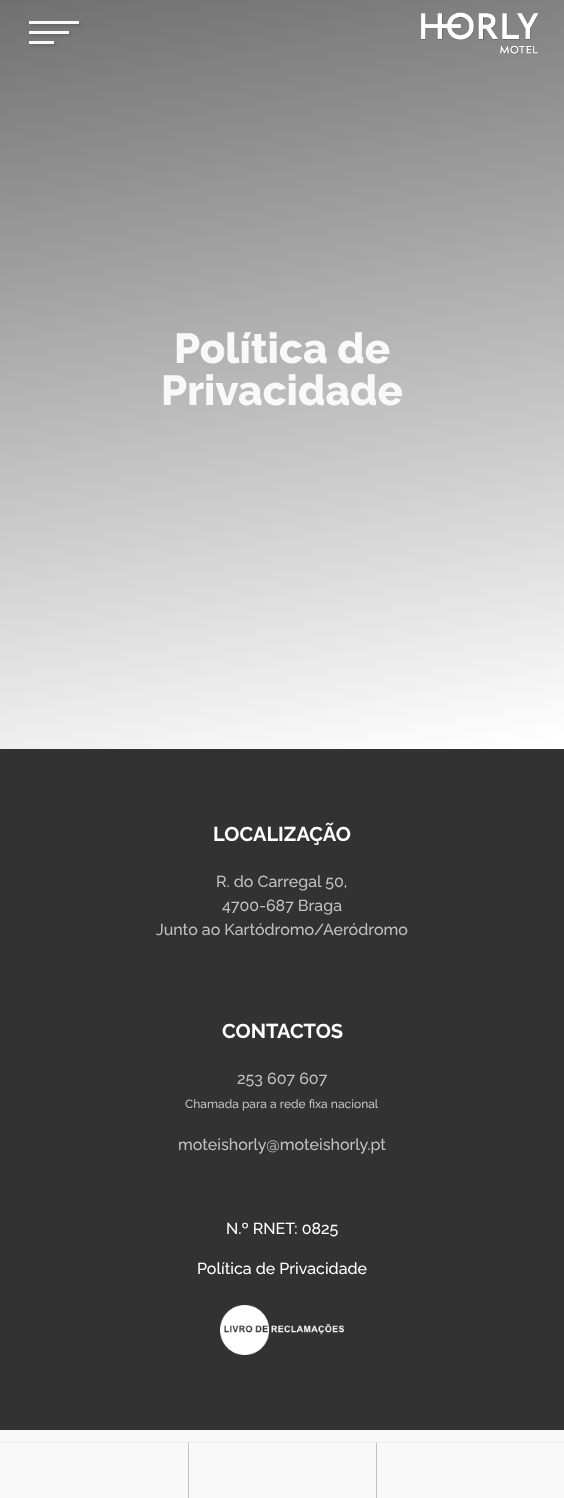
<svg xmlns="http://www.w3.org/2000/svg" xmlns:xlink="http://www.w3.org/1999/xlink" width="564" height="1498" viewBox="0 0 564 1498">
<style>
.cls-1{font:800 42px Raleway;fill:#f9f9f9}
.cls-2{font:bold 20px Raleway;fill:#ffffff}
.cls-3{font:500 16px Raleway;fill:#c1c1c1}
.cls-4{font:500 12px Raleway;fill:#c1c1c1}
.cls-5{font:500 16px Raleway;fill:#ffffff}
</style>
<defs>
<linearGradient id="g1" gradientUnits="userSpaceOnUse" x1="209" y1="-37" x2="355" y2="786"><stop offset="0" stop-color="#707070"/><stop offset="0.99" stop-color="#ffffff"/></linearGradient>
<clipPath id="clip1"><rect x="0" y="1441" width="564" height="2"/></clipPath>
</defs>
<rect width="100%" height="100%" fill="#f9f9f9"/>
<rect fill="url(#g1)" x="0" y="0" width="564" height="749"/>
<rect fill="#000000" fill-opacity="0.15" filter="blur(1.5px)" x="31" y="23" width="50" height="3"/>
<rect fill="#f9f9f9" x="29" y="21" width="50" height="3"/>
<rect fill="#000000" fill-opacity="0.15" filter="blur(1.5px)" x="31" y="33" width="40" height="3"/>
<rect fill="#f9f9f9" x="29" y="31" width="40" height="3"/>
<rect fill="#000000" fill-opacity="0.15" filter="blur(1.5px)" x="31" y="43" width="25" height="3"/>
<rect fill="#f9f9f9" x="29" y="41" width="25" height="3"/>
<image xlink:href="image0.png" x="421" y="12" width="118" height="43"/>
<g clip-path="url(#clip1)">
<rect fill="#000000" fill-opacity="0.3" filter="blur(2.5px)" x="0" y="1445" width="564" height="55"/>
</g>
<rect fill="#c1c1c1" x="188" y="1443" width="1" height="55"/>
<rect fill="#c1c1c1" x="376" y="1443" width="1" height="55"/>
<rect fill="#323232" x="0" y="749" width="564" height="681"/>
<image xlink:href="image1.png" x="220" y="1305" width="124" height="50"/>
<text class="cls-1" x="174" y="363">Política de</text>
<text class="cls-1" x="161" y="405">Privacidade</text>
<text class="cls-2" x="213" y="841">LOCALIZAÇÃO</text>
<text class="cls-3" x="216" y="887">R. do Carregal 50,</text>
<text class="cls-3" x="222" y="911">4700-687 Braga</text>
<text class="cls-3" x="156" y="935">Junto ao Kartódromo/Aeródromo</text>
<text class="cls-2" x="222" y="1038">CONTACTOS</text>
<text class="cls-3" x="237" y="1084">253 607 607</text>
<text class="cls-4" x="185" y="1108">Chamada para a rede fixa nacional</text>
<text class="cls-3" x="178" y="1150">moteishorly@moteishorly.pt</text>
<text class="cls-5" x="226" y="1234">N.º RNET: 0825</text>
<text class="cls-5" x="197" y="1274">Política de Privacidade</text>
</svg>
